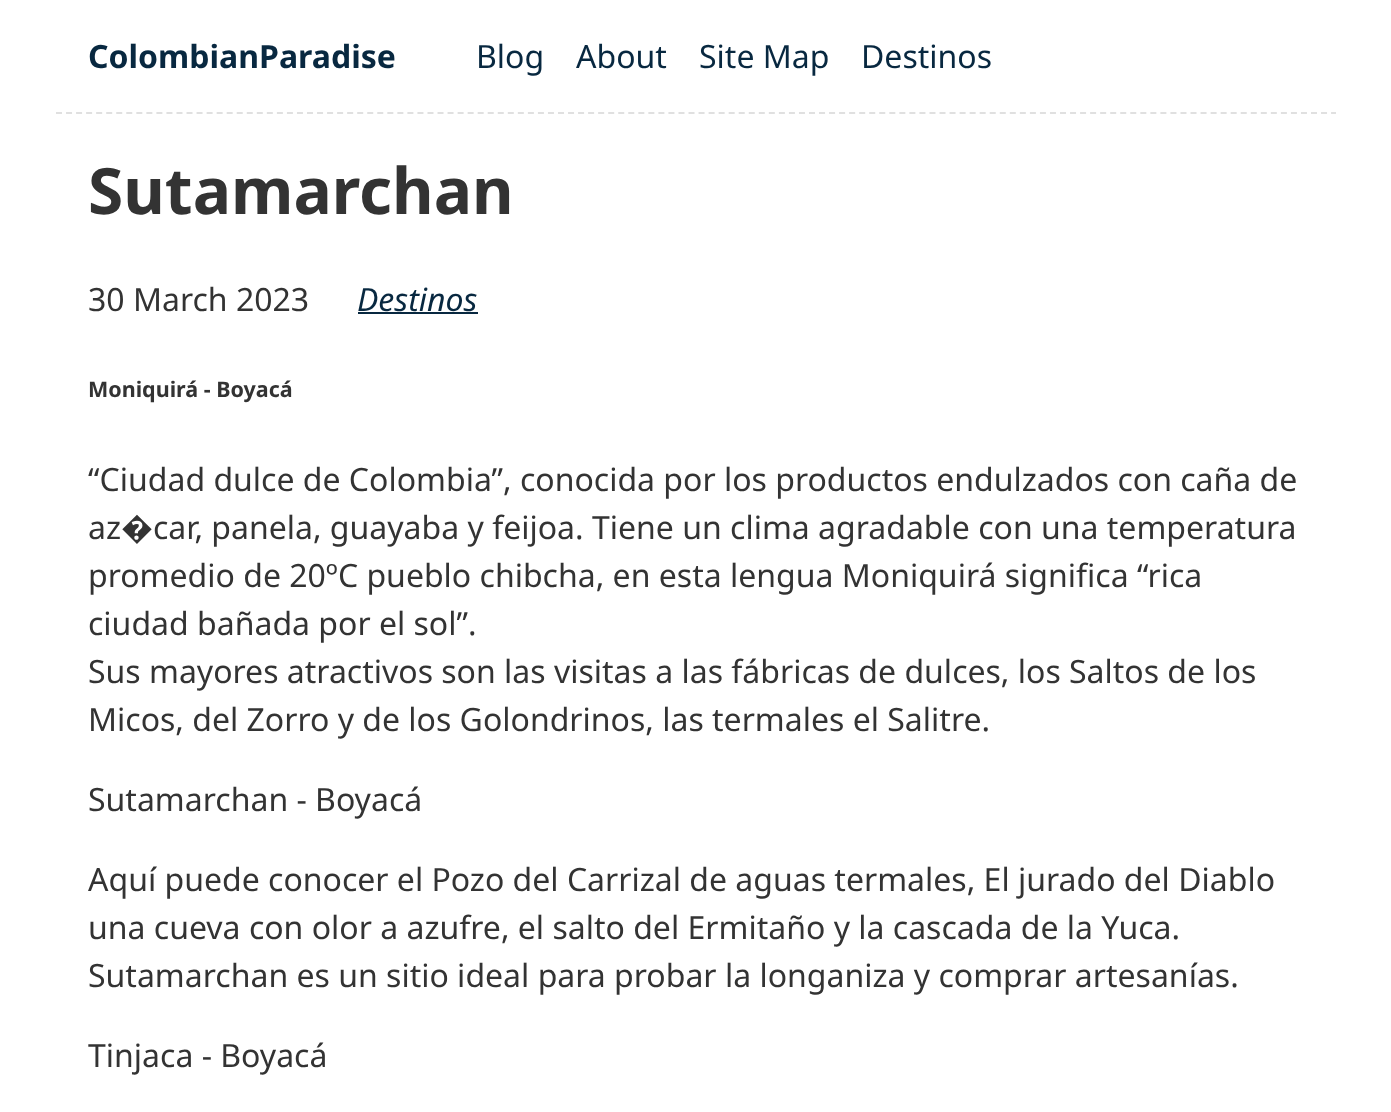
<svg xmlns="http://www.w3.org/2000/svg" xmlns:xlink="http://www.w3.org/1999/xlink" width="1391" height="1112" viewBox="0 0 1391 1112">
<style>
.cls-1{font:bold 32px Noto Sans;fill:#082840}
.cls-2{font:32px Noto Sans;fill:#082840}
.cls-3{font:bold 64px Noto Sans;fill:#333333}
.cls-4{font:32px Noto Sans;fill:#333333}
.cls-5{font:italic 32px Noto Sans;fill:#082840}
.cls-6{font:bold 21.5px Noto Sans;fill:#333333}
</style>
<rect width="100%" height="100%" fill="#ffffff"/>
<path fill="none" stroke="#e0e0e0" stroke-width="2" stroke-dasharray="6 4.04" d="M56 113H1336"/>
<rect fill="#082840" x="358" y="312" width="120" height="2"/>
<text class="cls-1" x="88" y="68">ColombianParadise</text>
<text class="cls-2" x="476" y="68">Blog</text>
<text class="cls-2" x="576" y="68">About</text>
<text class="cls-2" x="699" y="68">Site Map</text>
<text class="cls-2" x="861" y="68">Destinos</text>
<text class="cls-3" x="88" y="214">Sutamarchan</text>
<text class="cls-4" x="88" y="311">30 March 2023</text>
<text class="cls-5" x="357" y="311">Destinos</text>
<text class="cls-6" x="88" y="397">Moniquirá - Boyacá</text>
<text class="cls-4"><tspan x="88" y="491">“Ciudad dulce de Colombia”, conocida por los productos endulzados con caña de</tspan><tspan x="88" y="539">az�car, panela, guayaba y feijoa. Tiene un clima agradable con una temperatura</tspan><tspan x="88" y="587">promedio de 20ºC pueblo chibcha, en esta lengua Moniquirá significa “rica</tspan><tspan x="88" y="635">ciudad bañada por el sol”.</tspan><tspan x="88" y="683">Sus mayores atractivos son las visitas a las fábricas de dulces, los Saltos de los</tspan><tspan x="88" y="731">Micos, del Zorro y de los Golondrinos, las termales el Salitre.</tspan></text>
<text class="cls-4" x="88" y="811">Sutamarchan - Boyacá</text>
<text class="cls-4"><tspan x="88" y="891">Aquí puede conocer el Pozo del Carrizal de aguas termales, El jurado del Diablo</tspan><tspan x="88" y="939">una cueva con olor a azufre, el salto del Ermitaño y la cascada de la Yuca.</tspan><tspan x="88" y="987">Sutamarchan es un sitio ideal para probar la longaniza y comprar artesanías.</tspan></text>
<text class="cls-4" x="88" y="1067">Tinjaca - Boyacá</text>
</svg>
